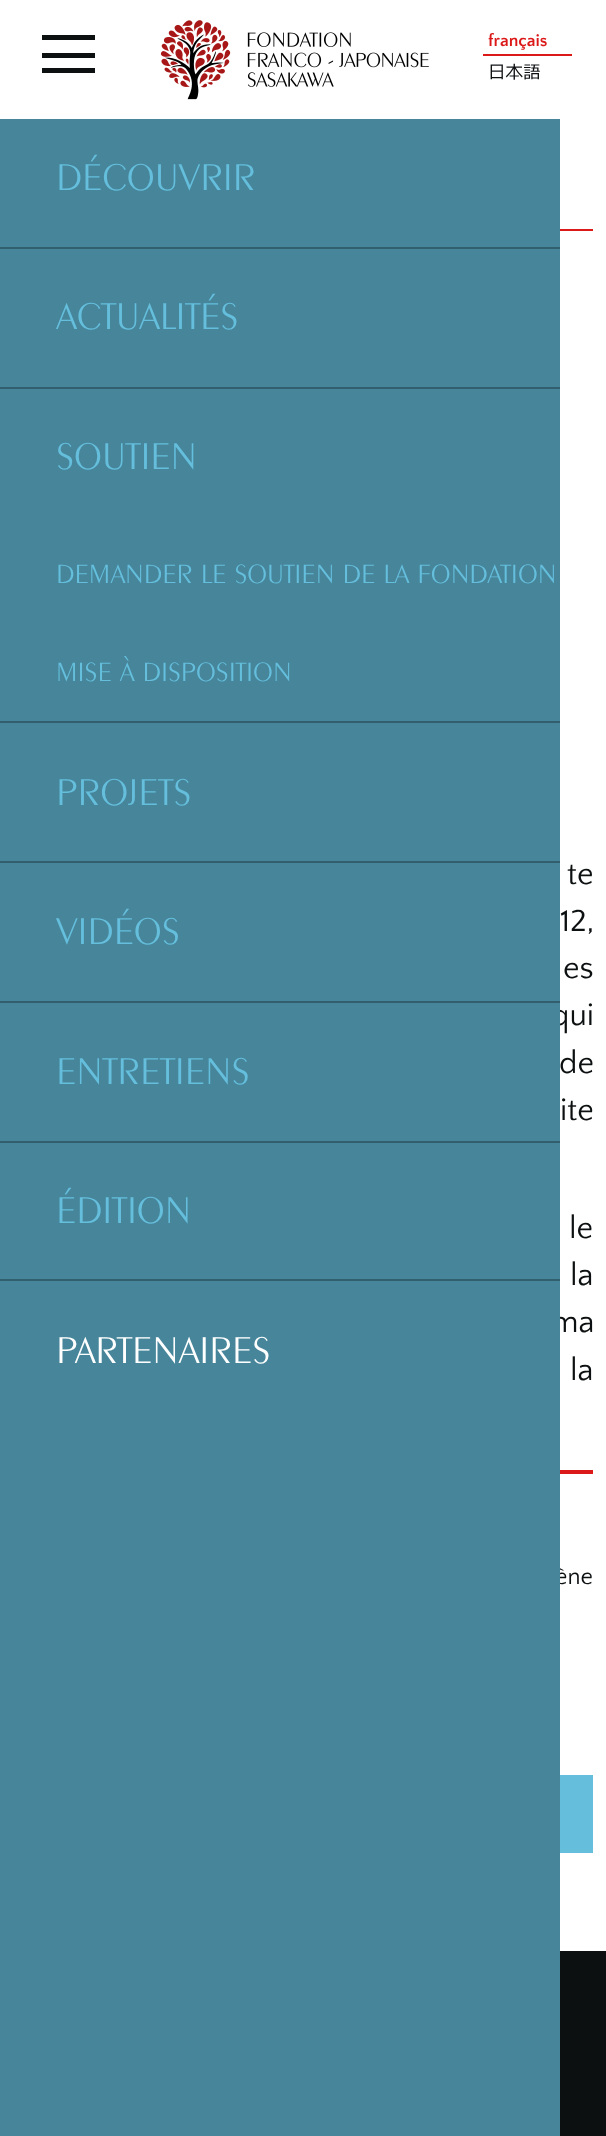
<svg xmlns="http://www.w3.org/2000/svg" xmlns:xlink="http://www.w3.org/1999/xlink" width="606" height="2136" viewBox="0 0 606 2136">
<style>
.cls-1{font:bold 17.5px Quattrocento Sans;fill:#dc1919}
.cls-2{font:17.5px 'M PLUS 1p';fill:#0d1011}
.cls-3{font:32px Quattrocento Sans;fill:#0d1011}
.cls-4{font:24px Quattrocento Sans;fill:#0d1011}
.cls-5{font:300 39.5px 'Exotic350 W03';fill:#ffffff}
.cls-6{font:300 39.5px 'Exotic350 W03';fill:#64bedc}
.cls-7{font:300 28px 'Exotic350 W03';fill:#64bedc}
</style>
<rect width="100%" height="100%" fill="#ffffff"/>
<rect fill="#0d1011" x="42" y="53" width="53" height="5"/>
<rect fill="#0d1011" x="42" y="35" width="53" height="5"/>
<rect fill="#0d1011" x="42" y="68" width="53" height="5"/>
<image xlink:href="image0.png" x="160" y="20" width="269" height="80"/>
<rect fill="#dc1919" x="483" y="54" width="89" height="2"/>
<rect fill="#dc1919" x="560" y="229" width="33" height="2"/>
<rect fill="#dc1919" x="560" y="1470" width="33" height="4"/>
<rect fill="#64bedc" x="560" y="1775" width="33" height="78"/>
<rect fill="#0d1011" x="560" y="1951" width="46" height="185"/>
<text class="cls-1" x="488" y="46">français</text>
<text class="cls-2" x="488" y="78">日本語</text>
<text class="cls-3" x="567" y="884" word-spacing="28">te</text>
<text class="cls-3" x="560" y="931" word-spacing="5">12,</text>
<text class="cls-3" x="563" y="978" word-spacing="2">es</text>
<text class="cls-3" x="551" y="1025" word-spacing="6">qui</text>
<text class="cls-3" x="559" y="1073" word-spacing="27">de</text>
<text class="cls-3" x="560" y="1120" word-spacing="1">ite</text>
<text class="cls-3" x="569" y="1238" word-spacing="9">le</text>
<text class="cls-3" x="570" y="1285" word-spacing="1">la</text>
<text class="cls-3" x="551" y="1332" word-spacing="30">ma</text>
<text class="cls-3" x="570" y="1380" word-spacing="22">la</text>
<text class="cls-4" x="555" y="1584" word-spacing="4">ène</text>
<rect fill="#46859a" x="0" y="119" width="560" height="2017"/>
<text class="cls-5" x="56" y="1363">PARTENAIRES</text>
<text class="cls-6" x="56" y="1223">ÉDITION</text>
<text class="cls-6" x="56" y="1084">ENTRETIENS</text>
<text class="cls-6" x="56" y="944">VIDÉOS</text>
<text class="cls-6" x="56" y="805">PROJETS</text>
<text class="cls-7" x="56" y="681">MISE À DISPOSITION</text>
<text class="cls-7" x="56" y="583">DEMANDER LE SOUTIEN DE LA FONDATION</text>
<text class="cls-6" x="56" y="469">SOUTIEN</text>
<text class="cls-6" x="56" y="329">ACTUALITÉS</text>
<text class="cls-6" x="56" y="190">DÉCOUVRIR</text>
<rect fill="#325f6e" x="0" y="1279" width="560" height="2"/>
<rect fill="#325f6e" x="0" y="1141" width="560" height="2"/>
<rect fill="#325f6e" x="0" y="1001" width="560" height="2"/>
<rect fill="#325f6e" x="0" y="861" width="560" height="2"/>
<rect fill="#325f6e" x="0" y="721" width="560" height="2"/>
<rect fill="#325f6e" x="0" y="387" width="560" height="2"/>
<rect fill="#325f6e" x="0" y="247" width="560" height="2"/>
</svg>
